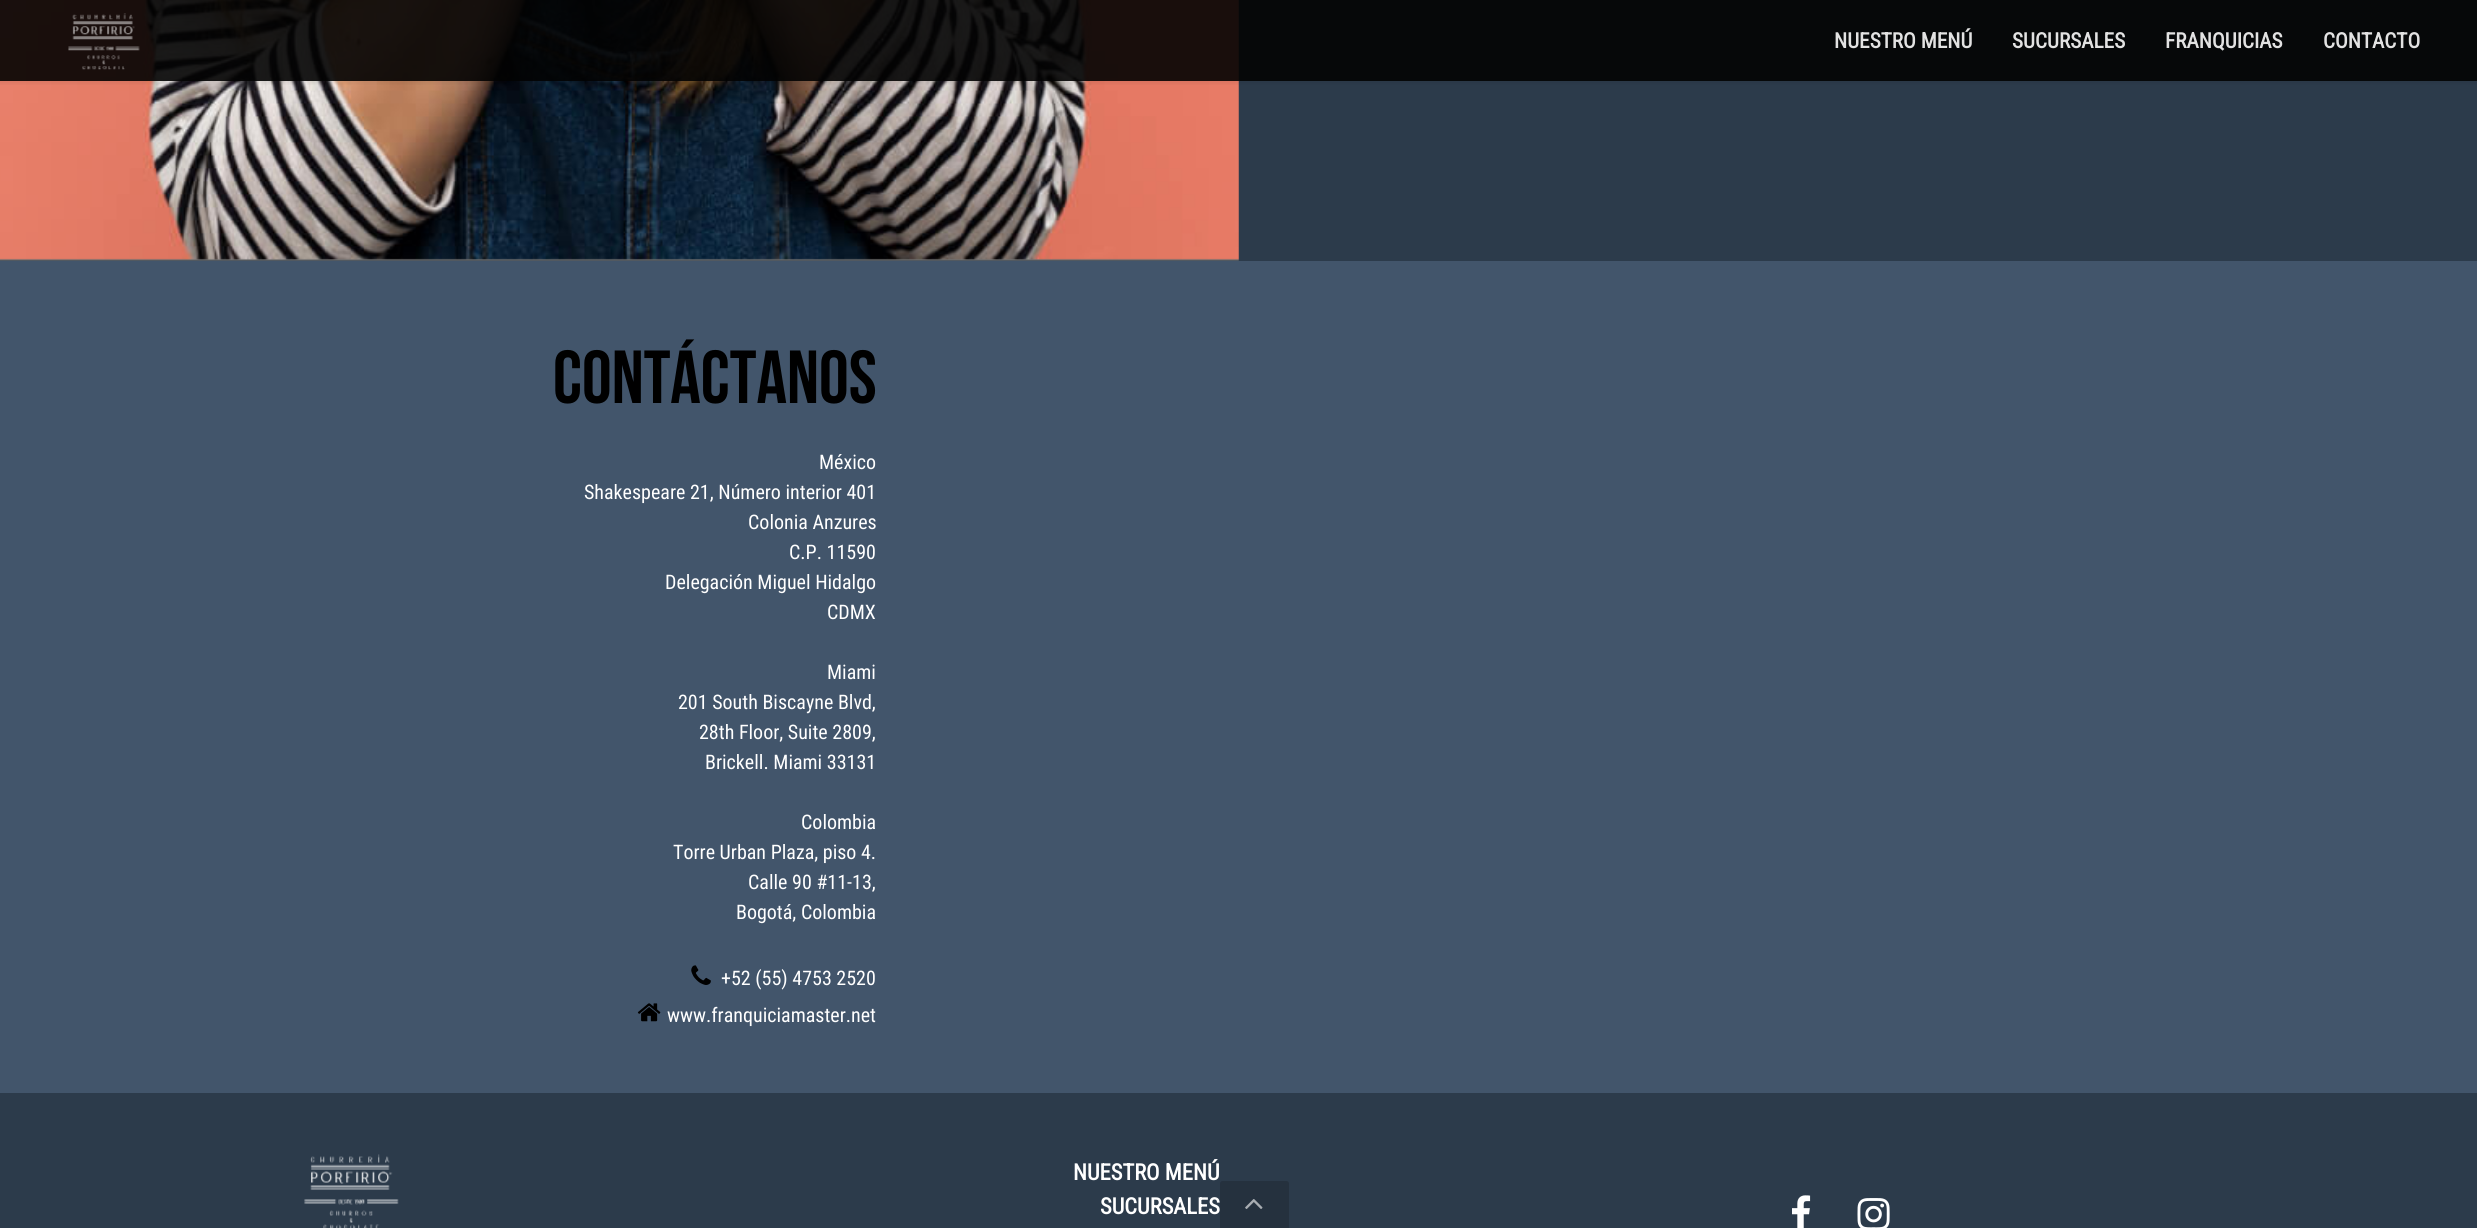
import math
import cairo

surface = cairo.ImageSurface(cairo.FORMAT_RGB24, 2477, 1228)
ctx = cairo.Context(surface)
options = cairo.FontOptions()
options.set_hint_metrics(cairo.HINT_METRICS_OFF)
options.set_hint_style(cairo.HINT_STYLE_NONE)
ctx.set_font_options(options)
ctx.set_miter_limit(4)


def round_rect(x, y, w, h, r):
    ctx.new_sub_path()
    for i, (u, v) in enumerate([(x + w - r, y + h - r), (x + r, y + h - r), (x + r, y + r), (x + w - r, y + r)]):
        ctx.arc(u, v, r, i * math.pi / 2, (i + 1) * math.pi / 2)
    ctx.close_path()


def shadow(x, y, w, h, r, blur, alpha):
    ctx.push_group_with_content(cairo.CONTENT_ALPHA)
    ctx.set_operator(cairo.OPERATOR_SOURCE)
    for i in range(15, -16, -2):
        e = blur * i / 6
        if min(w, h) + 2 * e > 0:
            ctx.set_source_rgba(0, 0, 0, alpha * math.erfc((i - 1) / 8.5) / 2)
            round_rect(x - e, y - e, w + 2 * e, h + 2 * e, max(0, min(r + e + blur * .6, min(w, h) / 2 + e)))
            ctx.fill()
    ctx.mask(ctx.pop_group())


def picture(path, x, y, w, h):
    ctx.save()
    ctx.set_source_surface(cairo.ImageSurface.create_from_png(path), x, y)
    ctx.rectangle(x, y, w, h)
    ctx.fill()
    ctx.restore()


ctx.set_source_rgb(0.173, 0.231, 0.294)
ctx.paint()
picture("img1.png", 0, 0, 1239, 261)
ctx.save()
ctx.rectangle(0, 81, 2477, 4)
ctx.clip()
ctx.set_source_rgb(0, 0, 0)
shadow(-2, -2, 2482, 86, 0, 2, 0.06)
ctx.restore()
ctx.set_source_rgba(0.012, 0.012, 0.012, 0.9)
ctx.rectangle(0, 0, 2477, 81)
ctx.fill()
picture("img2.png", 68, 13, 72, 57)
ctx.select_font_face("Roboto Condensed", cairo.FONT_SLANT_NORMAL, cairo.FONT_WEIGHT_BOLD)
ctx.set_font_size(21.25)
ctx.set_source_rgb(0.886, 0.886, 0.886)
ctx.move_to(1834, 48)
ctx.show_text("NUESTRO MENÚ")
ctx.move_to(2012, 48)
ctx.show_text("SUCURSALES")
ctx.move_to(2165, 48)
ctx.show_text("FRANQUICIAS")
ctx.move_to(2323, 48)
ctx.show_text("CONTACTO")
ctx.set_source_rgb(0.259, 0.333, 0.42)
ctx.rectangle(0, 261, 2477, 832)
ctx.fill()
ctx.select_font_face("Bebas Neue", cairo.FONT_SLANT_NORMAL, cairo.FONT_WEIGHT_BOLD)
ctx.set_font_size(75)
ctx.set_source_rgb(0, 0, 0)
ctx.move_to(553, 403)
ctx.show_text("CONTÁCTANOS")
ctx.select_font_face("Roboto Condensed")
ctx.set_font_size(20)
ctx.set_source_rgb(1, 1, 1)
ctx.move_to(819, 469)
ctx.show_text("México")
ctx.move_to(584, 499)
ctx.show_text("Shakespeare 21, Número interior 401")
ctx.move_to(748, 529)
ctx.show_text("Colonia Anzures")
ctx.move_to(789, 559)
ctx.show_text("C.P. 11590")
ctx.move_to(665, 589)
ctx.show_text("Delegación Miguel Hidalgo")
ctx.move_to(827, 619)
ctx.show_text("CDMX")
ctx.move_to(827, 679)
ctx.show_text("Miami")
ctx.move_to(678, 709)
ctx.show_text("201 South Biscayne Blvd,")
ctx.move_to(699, 739)
ctx.show_text("28th Floor, Suite 2809,")
ctx.move_to(705, 769)
ctx.show_text("Brickell. Miami 33131")
ctx.move_to(801, 829)
ctx.show_text("Colombia")
ctx.move_to(673, 859)
ctx.show_text("Torre Urban Plaza, piso 4.")
ctx.move_to(748, 889)
ctx.show_text("Calle 90 #11-13,")
ctx.move_to(736, 919)
ctx.show_text("Bogotá, Colombia")
picture("img3.png", 691, 965, 20, 20)
ctx.move_to(721, 985)
ctx.show_text("+52 (55) 4753 2520")
picture("img4.png", 637, 1003, 24, 19)
ctx.move_to(667, 1022)
ctx.show_text("www.franquiciamaster.net")
picture("img5.png", 304, 1154, 95, 74)
ctx.select_font_face("Roboto Condensed", cairo.FONT_SLANT_NORMAL, cairo.FONT_WEIGHT_BOLD)
ctx.set_font_size(22.5)
ctx.move_to(1073, 1180)
ctx.show_text("NUESTRO MENÚ")
ctx.move_to(1100, 1214)
ctx.show_text("SUCURSALES")
picture("img6.png", 1792, 1195, 19, 33)
picture("img7.png", 1857, 1198, 33, 30)
ctx.set_source_rgb(0.145, 0.192, 0.243)
round_rect(1220, 1181, 69, 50, 2.5)
ctx.fill()
picture("img8.png", 1245, 1199, 18, 10)
surface.write_to_png("page.png")
